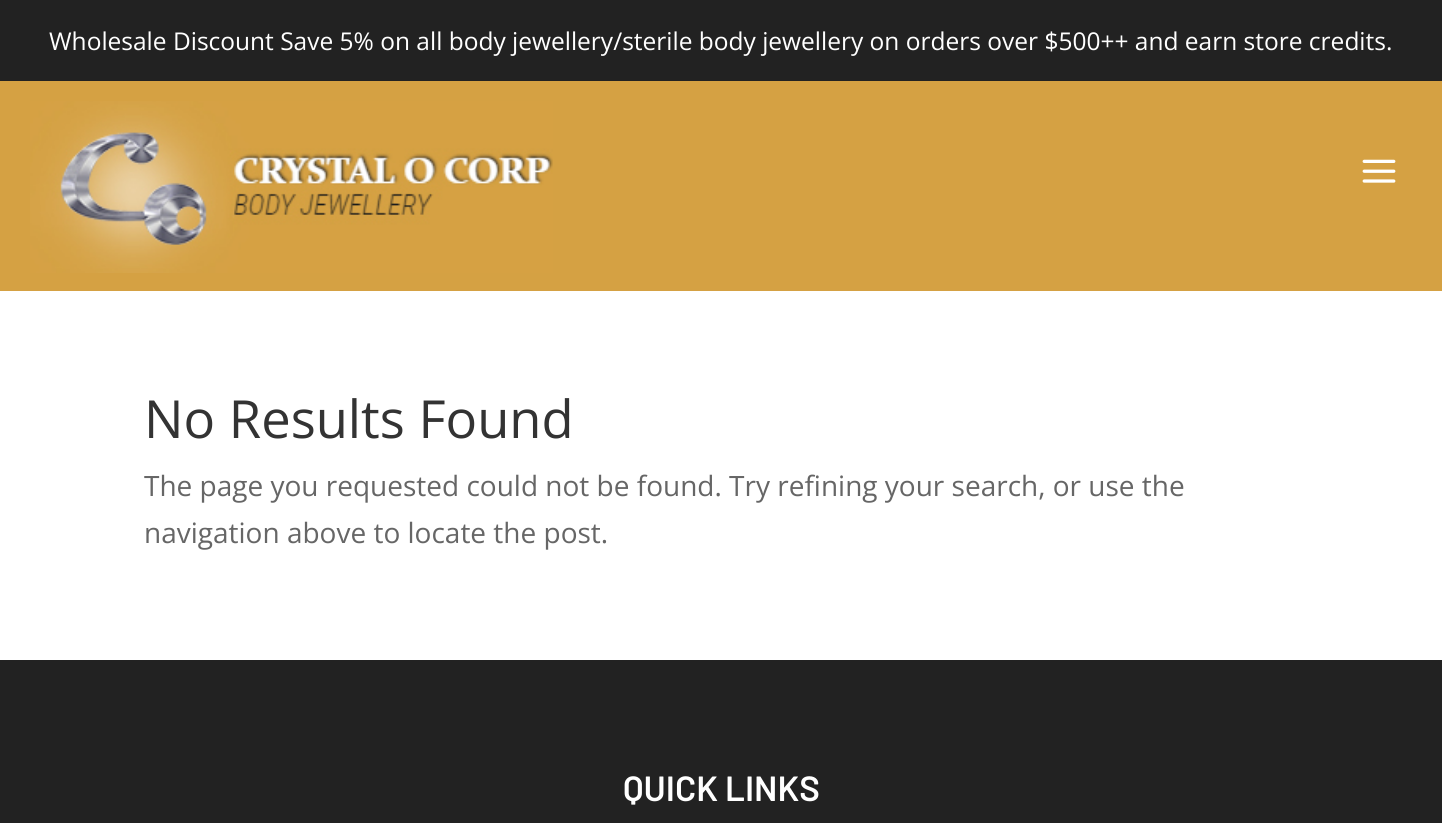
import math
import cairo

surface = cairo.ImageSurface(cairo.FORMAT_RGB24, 1442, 823)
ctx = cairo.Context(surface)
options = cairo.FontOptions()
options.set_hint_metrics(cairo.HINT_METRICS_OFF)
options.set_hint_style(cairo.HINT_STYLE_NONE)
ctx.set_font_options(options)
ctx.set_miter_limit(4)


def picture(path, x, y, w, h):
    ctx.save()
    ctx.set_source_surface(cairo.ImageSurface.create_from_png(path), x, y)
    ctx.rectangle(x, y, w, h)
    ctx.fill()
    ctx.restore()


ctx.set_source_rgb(1, 1, 1)
ctx.paint()
ctx.set_source_rgb(0.133, 0.133, 0.133)
ctx.rectangle(0, 0, 1442, 81)
ctx.fill()
ctx.select_font_face("Open Sans")
ctx.set_font_size(24.5)
ctx.set_source_rgb(1, 1, 1)
ctx.move_to(49, 50)
ctx.show_text("Wholesale Discount Save 5% on all body jewellery/sterile body jewellery on orders over $500++ and earn store credits.")
ctx.set_source_rgb(0.835, 0.631, 0.263)
ctx.rectangle(0, 81, 1442, 210)
ctx.fill()
picture("img1.png", 30, 101, 523, 172)
picture("img2.png", 1362, 159, 34, 24)
ctx.set_font_size(52.5)
ctx.set_source_rgb(0.2, 0.2, 0.2)
ctx.move_to(144, 438)
ctx.show_text("No Results Found")
ctx.set_font_size(28)
ctx.set_source_rgb(0.4, 0.4, 0.4)
ctx.move_to(144, 496)
ctx.show_text("The page you requested could not be found. Try refining your search, or use the")
ctx.move_to(144, 543)
ctx.show_text("navigation above to locate the post.")
ctx.set_source_rgb(0.133, 0.133, 0.133)
ctx.rectangle(0, 660, 1442, 163)
ctx.fill()
ctx.select_font_face("Barlow SemiBold")
ctx.set_font_size(35)
ctx.set_source_rgb(1, 1, 1)
ctx.move_to(623, 801)
ctx.show_text("QUICK LINKS")
surface.write_to_png("page.png")
